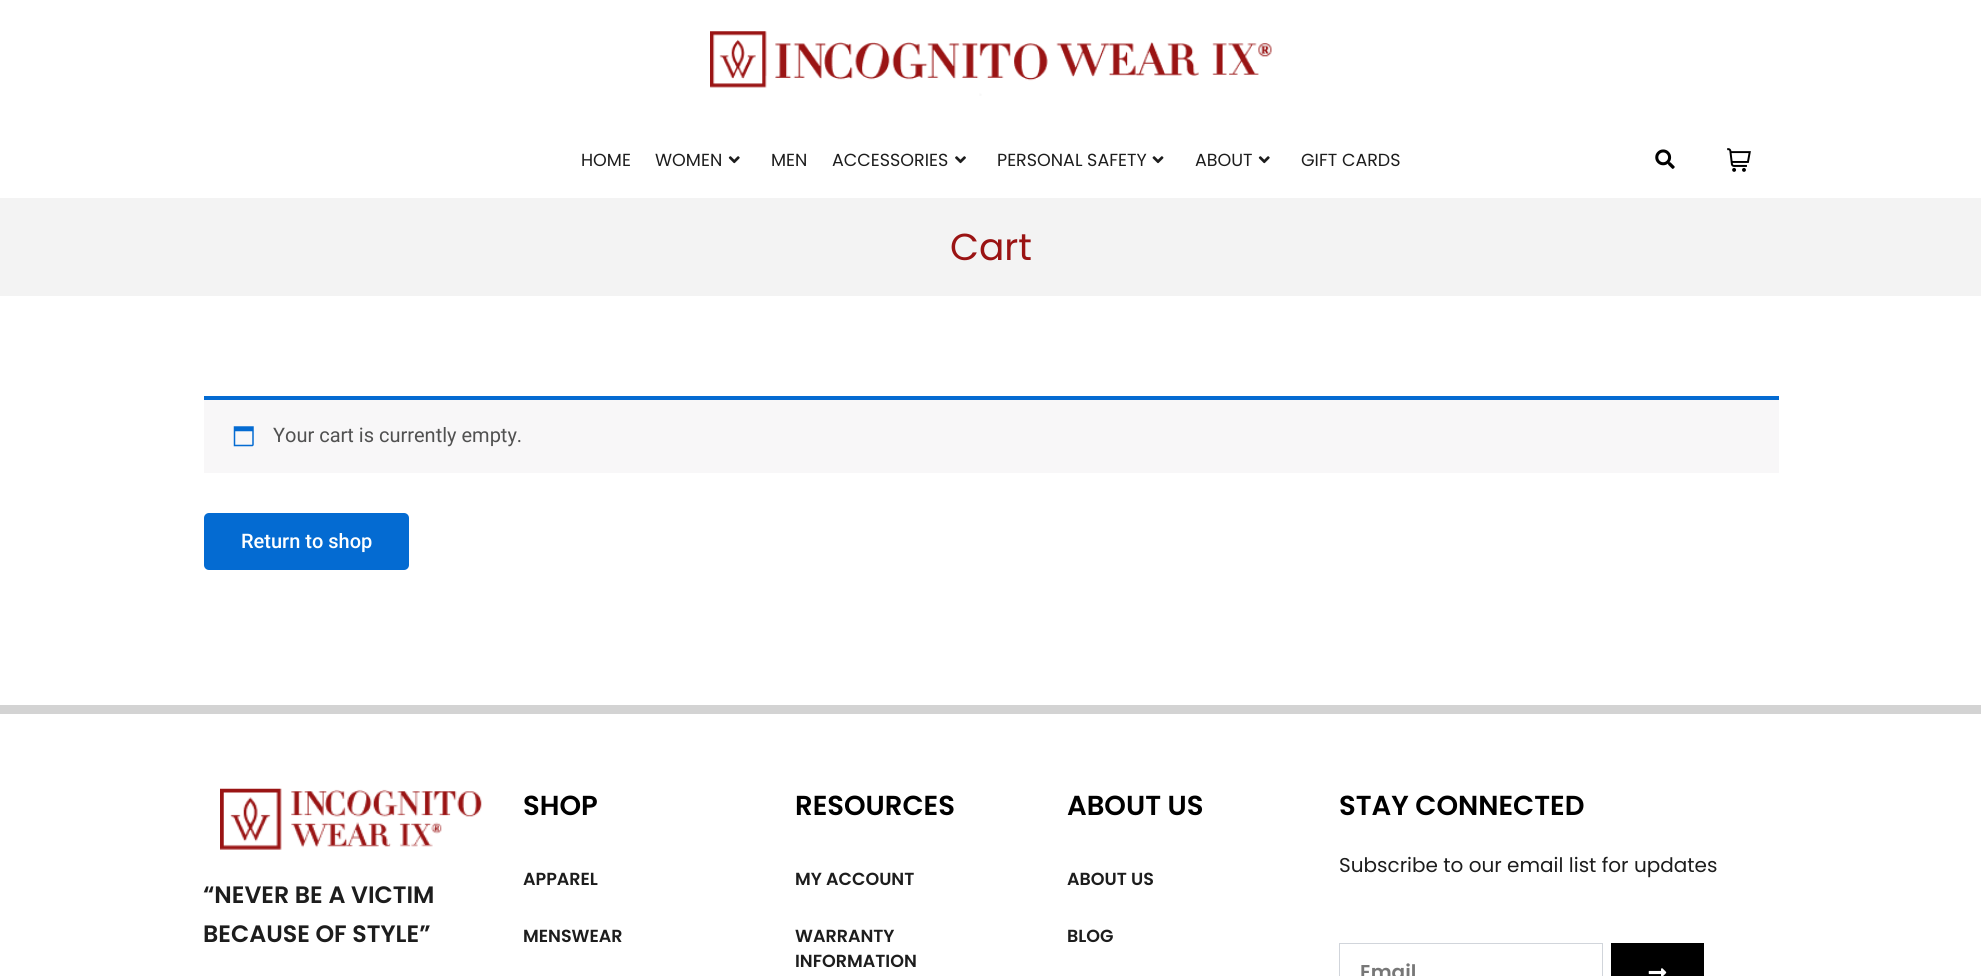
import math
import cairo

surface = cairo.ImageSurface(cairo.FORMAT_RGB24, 1981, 976)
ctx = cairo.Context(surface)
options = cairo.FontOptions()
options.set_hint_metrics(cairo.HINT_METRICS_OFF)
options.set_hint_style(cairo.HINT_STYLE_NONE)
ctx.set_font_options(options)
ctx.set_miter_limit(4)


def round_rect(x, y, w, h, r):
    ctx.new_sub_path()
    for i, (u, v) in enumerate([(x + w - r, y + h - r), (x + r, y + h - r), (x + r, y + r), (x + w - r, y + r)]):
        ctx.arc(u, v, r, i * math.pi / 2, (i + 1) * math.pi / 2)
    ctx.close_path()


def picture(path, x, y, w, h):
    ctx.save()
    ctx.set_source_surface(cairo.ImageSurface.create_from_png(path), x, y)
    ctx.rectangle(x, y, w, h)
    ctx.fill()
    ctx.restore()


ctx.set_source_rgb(1, 1, 1)
ctx.paint()
picture("img1.png", 710, 31, 562, 65)
ctx.select_font_face("Poppins")
ctx.set_font_size(17.5)
ctx.set_source_rgb(0.114, 0.114, 0.114)
ctx.move_to(581, 166)
ctx.show_text("HOME")
ctx.move_to(655, 166)
ctx.show_text("WOMEN")
picture("img2.png", 728, 156, 12, 8)
ctx.move_to(771, 166)
ctx.show_text("MEN")
ctx.move_to(832, 166)
ctx.show_text("ACCESSORIES")
picture("img3.png", 955, 156, 11, 8)
ctx.move_to(997, 166)
ctx.show_text("PERSONAL SAFETY")
picture("img4.png", 1152, 156, 12, 8)
ctx.move_to(1195, 166)
ctx.show_text("ABOUT")
picture("img2.png", 1258, 156, 12, 8)
ctx.move_to(1301, 166)
ctx.show_text("GIFT CARDS")
picture("img5.png", 1655, 149, 20, 20)
picture("img6.png", 1727, 148, 24, 24)
ctx.set_source_rgb(0.953, 0.953, 0.953)
ctx.rectangle(0, 198, 1981, 98)
ctx.fill()
ctx.set_font_size(37.5)
ctx.set_source_rgb(0.604, 0.078, 0.078)
ctx.move_to(950, 260)
ctx.show_text("Cart")
ctx.set_source_rgb(0.969, 0.965, 0.969)
ctx.rectangle(204, 400, 1575, 73)
ctx.fill()
ctx.set_source_rgb(0.016, 0.42, 0.824)
ctx.rectangle(204, 396, 1575, 4)
ctx.fill()
picture("img7.png", 233, 426, 21, 21)
ctx.select_font_face("Roboto")
ctx.set_font_size(20)
ctx.set_source_rgb(0.318, 0.318, 0.318)
ctx.move_to(273, 442)
ctx.show_text("Your cart is currently empty.")
ctx.set_source_rgb(0.016, 0.42, 0.824)
round_rect(204, 513, 205, 57, 5)
ctx.fill()
ctx.select_font_face("Roboto Medium")
ctx.set_source_rgb(1, 1, 1)
ctx.move_to(241, 548)
ctx.show_text("Return to shop")
ctx.set_source_rgb(0.827, 0.827, 0.827)
ctx.rectangle(0, 705, 1981, 9)
ctx.fill()
picture("img8.png", 220, 788, 262, 62)
ctx.select_font_face("Poppins SemiBold")
ctx.set_font_size(23.75)
ctx.set_source_rgb(0.114, 0.114, 0.114)
ctx.move_to(203, 903)
ctx.show_text("“NEVER BE A VICTIM")
ctx.move_to(203, 942)
ctx.show_text("BECAUSE OF STYLE”")
ctx.set_font_size(27.5)
ctx.set_source_rgb(0, 0, 0)
ctx.move_to(523, 815)
ctx.show_text("SHOP")
ctx.set_font_size(17.5)
ctx.set_source_rgb(0.114, 0.114, 0.114)
ctx.move_to(523, 885)
ctx.show_text("APPAREL")
ctx.move_to(523, 942)
ctx.show_text("MENSWEAR")
ctx.set_font_size(27.5)
ctx.set_source_rgb(0, 0, 0)
ctx.move_to(795, 815)
ctx.show_text("RESOURCES")
ctx.set_font_size(17.5)
ctx.set_source_rgb(0.114, 0.114, 0.114)
ctx.move_to(795, 885)
ctx.show_text("MY ACCOUNT")
ctx.move_to(795, 942)
ctx.show_text("WARRANTY")
ctx.move_to(795, 967)
ctx.show_text("INFORMATION")
ctx.set_font_size(27.5)
ctx.set_source_rgb(0, 0, 0)
ctx.move_to(1067, 815)
ctx.show_text("ABOUT US")
ctx.set_font_size(17.5)
ctx.set_source_rgb(0.114, 0.114, 0.114)
ctx.move_to(1067, 885)
ctx.show_text("ABOUT US")
ctx.move_to(1067, 942)
ctx.show_text("BLOG")
ctx.set_font_size(27.5)
ctx.set_source_rgb(0, 0, 0)
ctx.move_to(1339, 815)
ctx.show_text("STAY CONNECTED")
ctx.select_font_face("Poppins")
ctx.set_font_size(20)
ctx.set_source_rgb(0.114, 0.114, 0.114)
ctx.move_to(1339, 872)
ctx.show_text("Subscribe to our email list for updates")
ctx.rectangle(1339.5, 943.5, 263, 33)
ctx.set_source_rgb(0.82, 0.835, 0.859)
ctx.set_line_width(1)
ctx.stroke()
ctx.select_font_face("Poppins SemiBold")
ctx.set_source_rgb(0.467, 0.467, 0.467)
ctx.move_to(1360, 979)
ctx.show_text("Email")
ctx.set_source_rgb(0, 0, 0)
ctx.rectangle(1611, 943, 93, 33)
ctx.fill()
picture("img9.png", 1648, 968, 19, 8)
surface.write_to_png("page.png")
